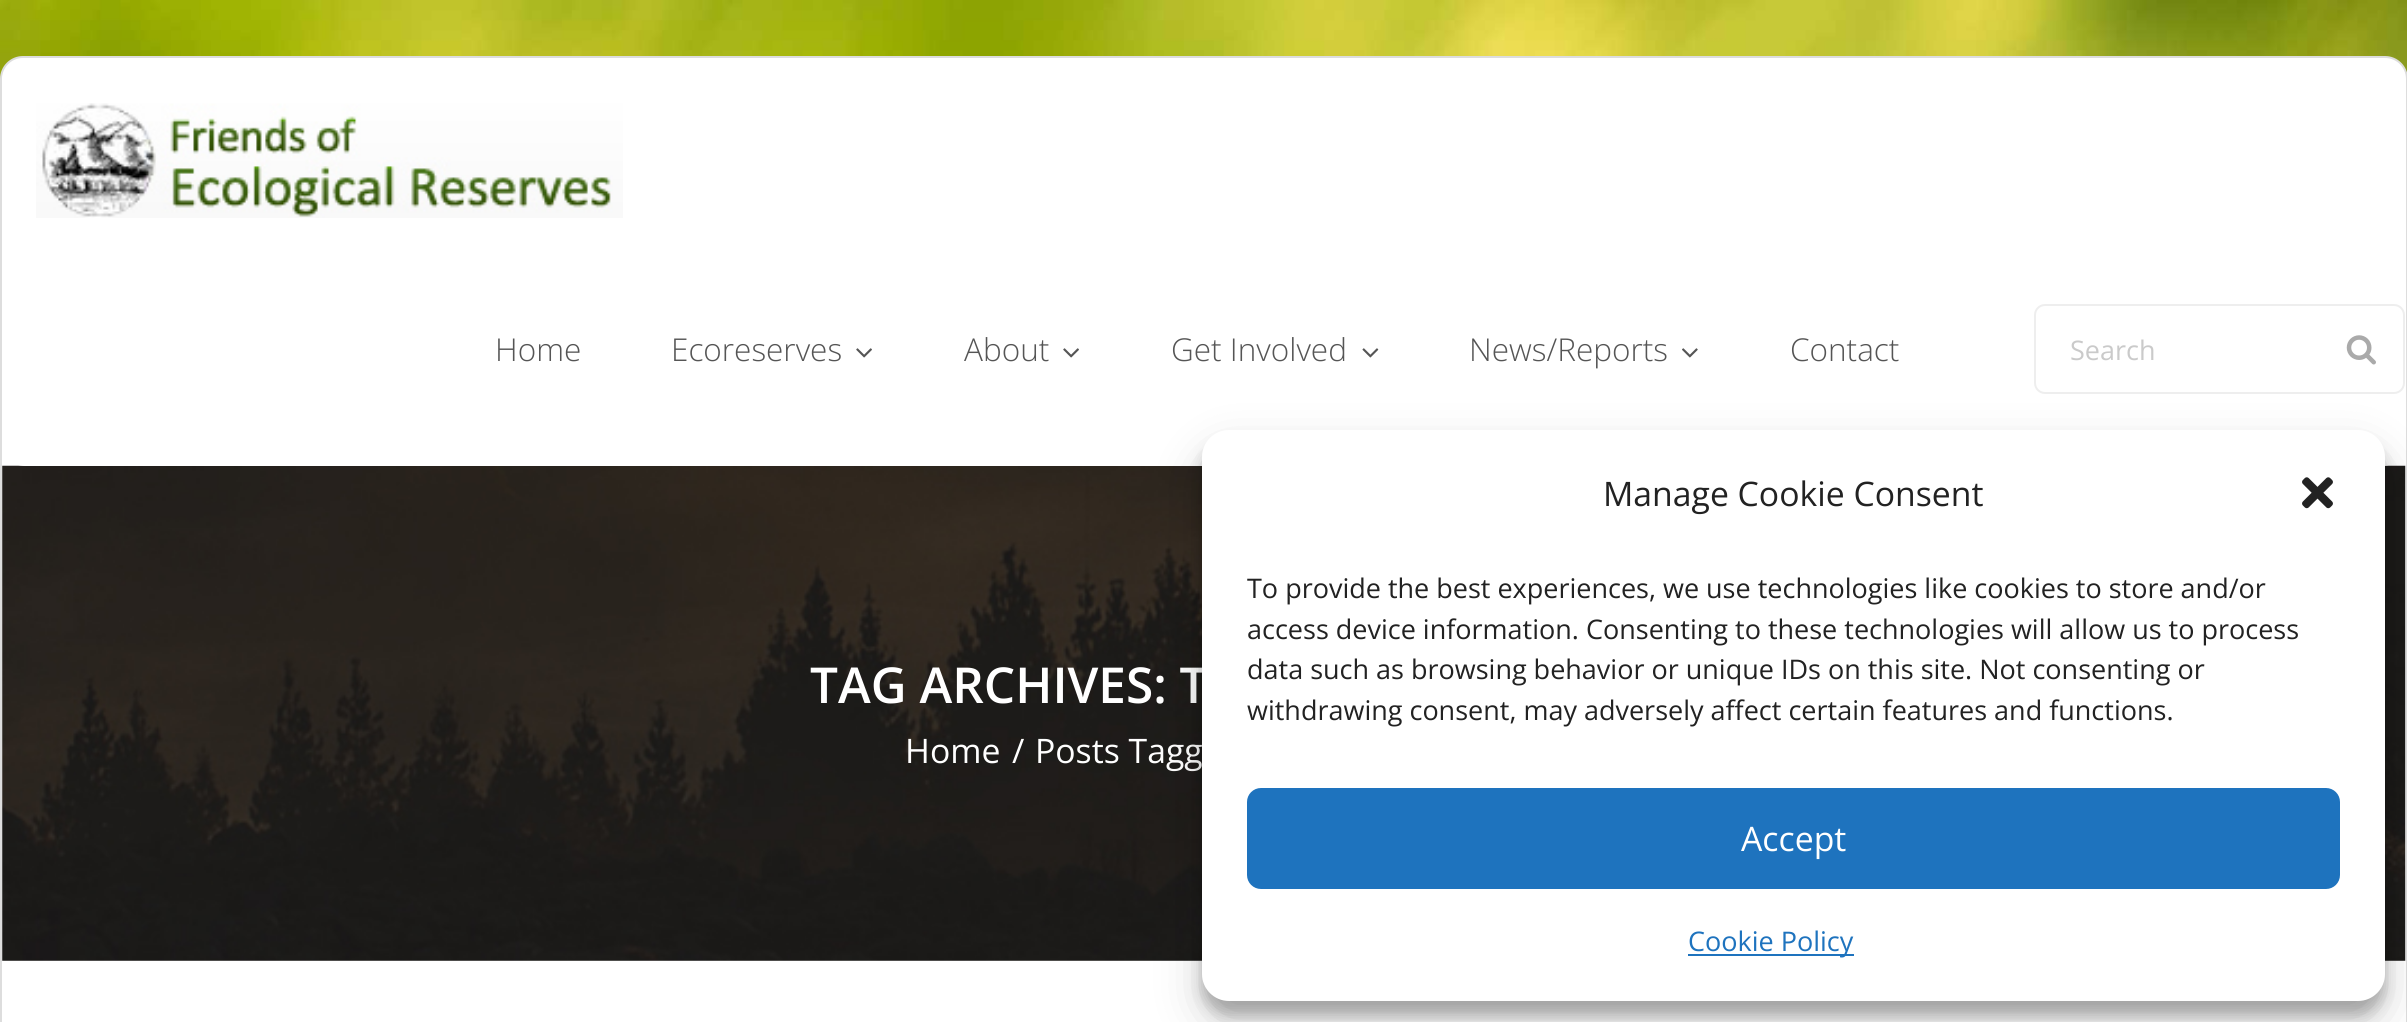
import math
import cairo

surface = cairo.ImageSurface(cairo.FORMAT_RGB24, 2407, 1022)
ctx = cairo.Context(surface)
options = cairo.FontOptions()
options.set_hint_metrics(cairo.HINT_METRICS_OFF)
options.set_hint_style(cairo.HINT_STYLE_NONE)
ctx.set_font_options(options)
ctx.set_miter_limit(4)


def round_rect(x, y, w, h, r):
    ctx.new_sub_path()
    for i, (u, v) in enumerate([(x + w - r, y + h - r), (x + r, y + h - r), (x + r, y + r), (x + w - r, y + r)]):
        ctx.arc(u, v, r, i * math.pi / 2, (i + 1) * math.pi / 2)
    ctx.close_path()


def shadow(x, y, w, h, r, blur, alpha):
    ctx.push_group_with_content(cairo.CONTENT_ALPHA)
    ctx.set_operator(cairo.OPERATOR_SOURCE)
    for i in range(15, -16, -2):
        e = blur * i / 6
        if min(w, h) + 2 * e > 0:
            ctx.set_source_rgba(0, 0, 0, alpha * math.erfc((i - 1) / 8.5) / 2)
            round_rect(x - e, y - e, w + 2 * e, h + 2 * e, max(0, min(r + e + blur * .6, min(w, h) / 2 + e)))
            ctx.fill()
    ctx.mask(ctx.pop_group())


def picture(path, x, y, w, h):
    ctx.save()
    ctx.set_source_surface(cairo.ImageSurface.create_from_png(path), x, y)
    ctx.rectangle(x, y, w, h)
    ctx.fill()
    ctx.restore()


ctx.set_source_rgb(1, 1, 1)
ctx.paint()
picture("img1.png", 0, 0, 2407, 79)
ctx.set_source_rgb(1, 1, 1)
round_rect(1, 57, 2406, 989, 22)
ctx.fill_preserve()
ctx.set_source_rgb(0.867, 0.867, 0.867)
ctx.stroke()
ctx.set_source_rgb(0.937, 0.933, 0.933)
ctx.rectangle(2, 466, 2403, 495)
ctx.fill()
picture("img7.png", 2, 465, 2404, 496)
ctx.set_source_rgb(1, 1, 1)
round_rect(2, 59, 2403, 407, 23)
ctx.fill()
picture("img2.png", 36, 103, 587, 115)
ctx.select_font_face("Open Sans Light")
ctx.set_font_size(31.5)
ctx.set_source_rgb(0.333, 0.333, 0.333)
ctx.move_to(495, 361)
ctx.show_text("Home")
ctx.move_to(671, 361)
ctx.show_text("Ecoreserves")
picture("img3.png", 856, 348, 16, 10)
ctx.move_to(964, 361)
ctx.show_text("About")
picture("img3.png", 1063, 348, 16, 10)
ctx.move_to(1171, 361)
ctx.show_text("Get Involved")
picture("img4.png", 1362, 348, 17, 10)
ctx.move_to(1469, 361)
ctx.show_text("News/Reports")
picture("img5.png", 1682, 348, 16, 10)
ctx.move_to(1790, 361)
ctx.show_text("Contact")
round_rect(2035, 305, 369, 88, 10)
ctx.set_source_rgb(0.933, 0.933, 0.933)
ctx.stroke()
ctx.select_font_face("Open Sans")
ctx.set_font_size(27)
ctx.set_source_rgb(0.792, 0.792, 0.792)
ctx.move_to(2070, 360)
ctx.show_text("Search")
picture("img6.png", 2346, 335, 30, 30)
ctx.select_font_face("Open Sans SemiBold")
ctx.set_font_size(49.5)
ctx.set_source_rgb(1, 1, 1)
ctx.move_to(810, 703)
ctx.show_text("TAG ARCHIVES: T")
ctx.select_font_face("Open Sans")
ctx.set_font_size(33.75)
ctx.move_to(905, 763)
ctx.show_text("Home")
ctx.move_to(1012, 763)
ctx.show_text("/")
ctx.move_to(1035, 763)
ctx.show_text("Posts Tagg")
ctx.set_source_rgb(0, 0, 0)
shadow(1202, 443, 1183, 572, 27, 7, 0.23)
shadow(1202, 452, 1183, 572, 27, 22.5, 0.19)
ctx.set_source_rgb(1, 1, 1)
round_rect(1202, 430, 1183, 571, 27)
ctx.fill()
ctx.set_source_rgb(0.133, 0.133, 0.133)
ctx.move_to(1603, 506)
ctx.show_text("Manage Cookie Consent")
picture("img8.png", 2302, 477, 31, 32)
ctx.save()
ctx.rectangle(1247, 569, 1093, 174)
ctx.clip()
ctx.set_font_size(27)
ctx.move_to(1247, 598)
ctx.show_text("To provide the best experiences, we use technologies like cookies to store and/or")
ctx.restore()
ctx.set_font_size(27)
ctx.move_to(1247, 639)
ctx.show_text("access device information. Consenting to these technologies will allow us to process")
ctx.move_to(1247, 679)
ctx.show_text("data such as browsing behavior or unique IDs on this site. Not consenting or")
ctx.move_to(1247, 720)
ctx.show_text("withdrawing consent, may adversely affect certain features and functions.")
ctx.set_source_rgb(0.118, 0.451, 0.745)
round_rect(1248, 789, 1091, 99, 13)
ctx.fill_preserve()
ctx.stroke()
ctx.set_font_size(33.75)
ctx.set_source_rgb(1, 1, 1)
ctx.move_to(1741, 851)
ctx.show_text("Accept")
ctx.set_source_rgb(0.118, 0.451, 0.745)
ctx.rectangle(1688, 954, 166, 2)
ctx.fill()
ctx.set_font_size(27)
ctx.move_to(1688, 951)
ctx.show_text("Cookie Policy")
surface.write_to_png("page.png")
